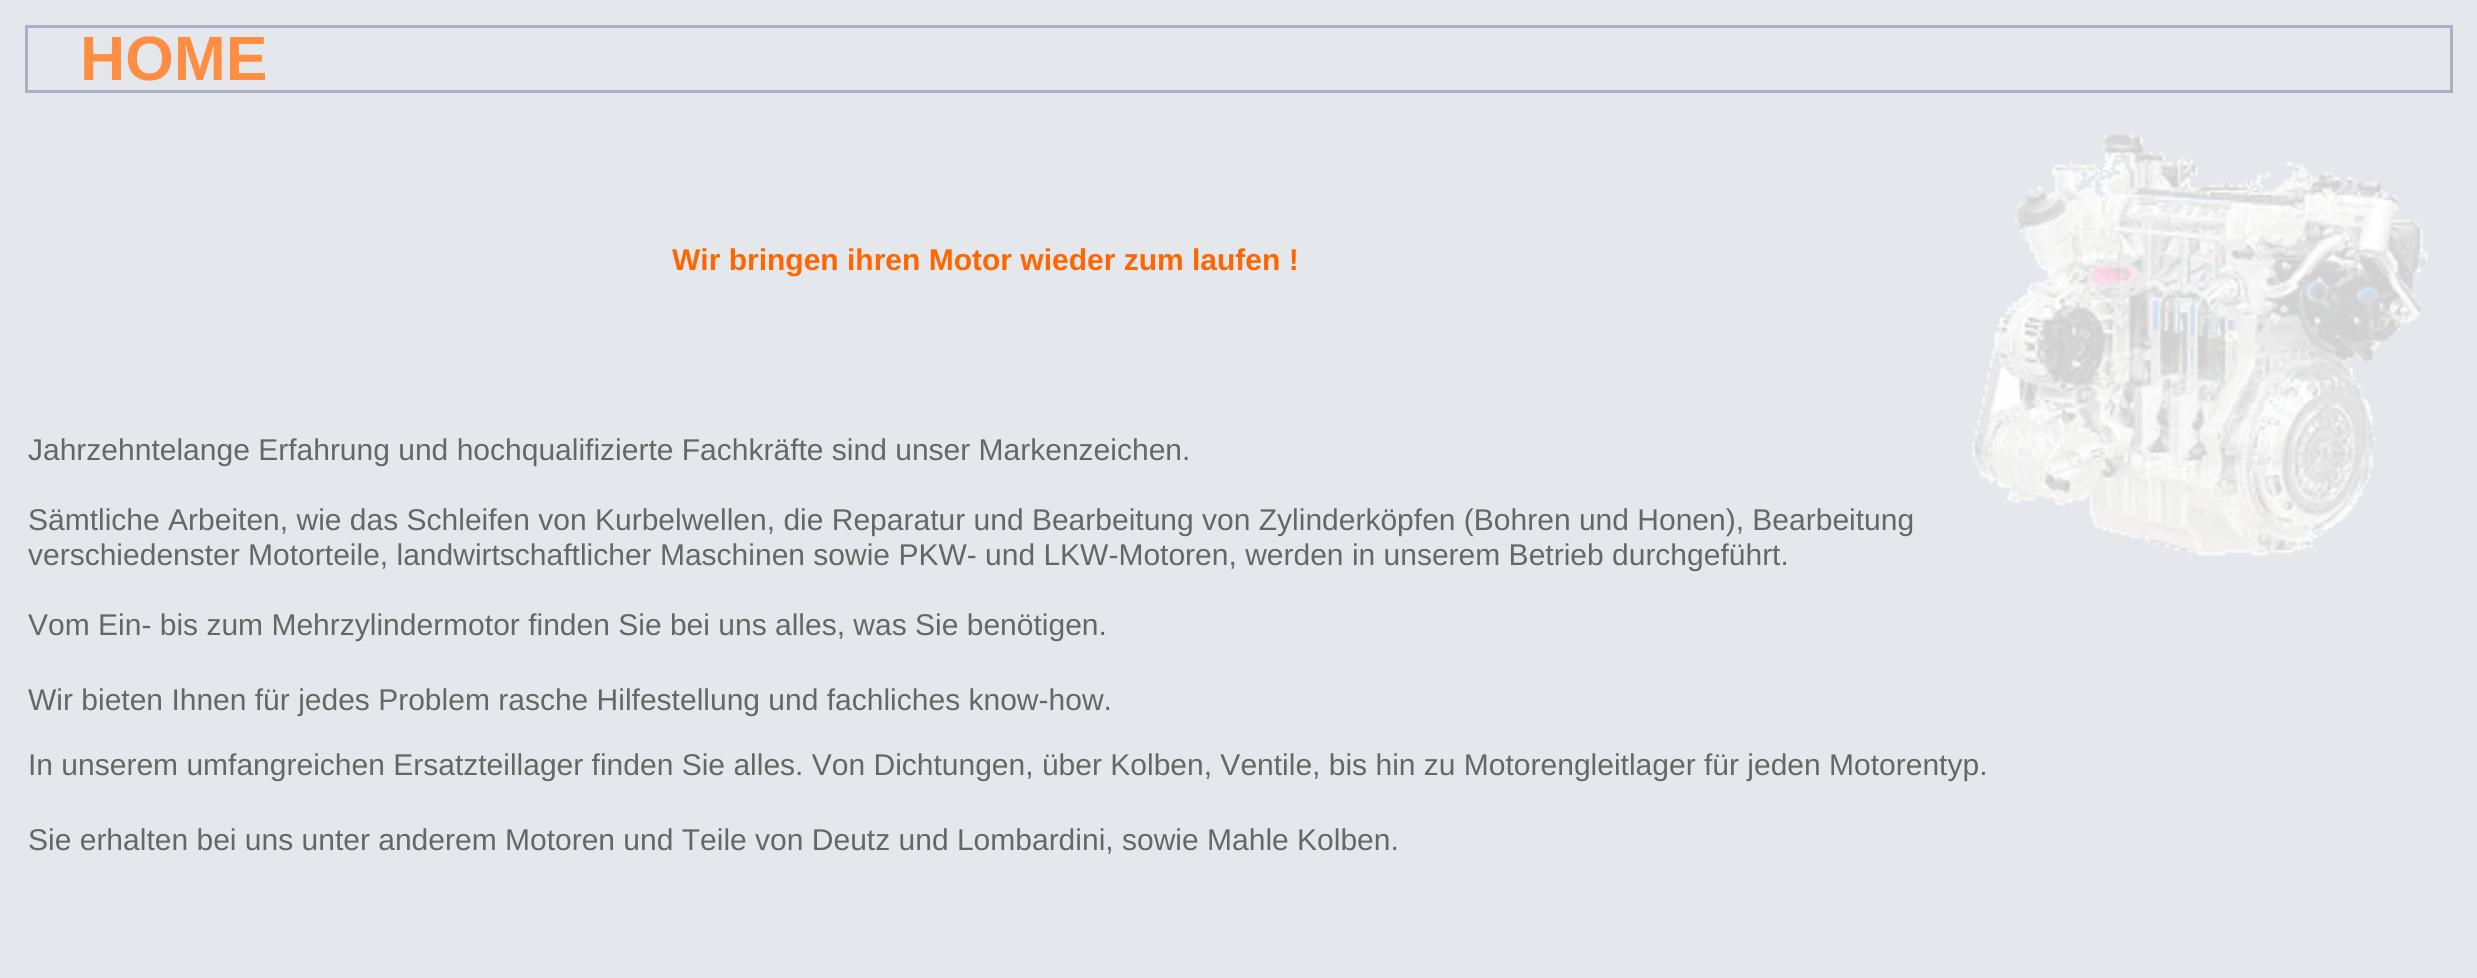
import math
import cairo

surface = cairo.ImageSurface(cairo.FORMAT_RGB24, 2477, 978)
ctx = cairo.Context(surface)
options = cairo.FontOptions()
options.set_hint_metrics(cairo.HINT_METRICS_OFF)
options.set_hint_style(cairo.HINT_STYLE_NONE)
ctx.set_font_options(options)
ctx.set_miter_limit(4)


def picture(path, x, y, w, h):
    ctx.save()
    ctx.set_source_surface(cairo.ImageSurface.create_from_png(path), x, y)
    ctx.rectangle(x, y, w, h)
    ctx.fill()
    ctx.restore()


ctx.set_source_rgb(0.894, 0.91, 0.929)
ctx.paint()
ctx.rectangle(26.5, 26.5, 2425, 65)
ctx.set_source_rgb(0.667, 0.694, 0.769)
ctx.set_line_width(3)
ctx.stroke()
ctx.select_font_face("Liberation Sans", cairo.FONT_SLANT_NORMAL, cairo.FONT_WEIGHT_BOLD)
ctx.set_font_size(62.5)
ctx.set_source_rgb(1, 0.553, 0.259)
ctx.move_to(80, 80)
ctx.show_text("HOME")
ctx.set_font_size(30)
ctx.set_source_rgb(1, 0.4, 0)
ctx.move_to(672, 270)
ctx.show_text("Wir bringen ihren Motor wieder zum laufen !")
picture("img1.png", 1972, 134, 456, 422)
ctx.select_font_face("Liberation Sans")
ctx.set_source_rgb(0.4, 0.4, 0.4)
ctx.move_to(28, 460)
ctx.show_text("Jahrzehntelange Erfahrung und hochqualifizierte Fachkräfte sind unser Markenzeichen.")
ctx.move_to(28, 530)
ctx.show_text("Sämtliche Arbeiten, wie das Schleifen von Kurbelwellen, die Reparatur und Bearbeitung von Zylinderköpfen (Bohren und Honen), Bearbeitung")
ctx.move_to(28, 565)
ctx.show_text("verschiedenster Motorteile, landwirtschaftlicher Maschinen sowie PKW- und LKW-Motoren, werden in unserem Betrieb durchgeführt.")
ctx.move_to(28, 635)
ctx.show_text("Vom Ein- bis zum Mehrzylindermotor finden Sie bei uns alles, was Sie benötigen.")
ctx.move_to(28, 710)
ctx.show_text("Wir bieten Ihnen für jedes Problem rasche Hilfestellung und fachliches know-how.")
ctx.move_to(28, 775)
ctx.show_text("In unserem umfangreichen Ersatzteillager finden Sie alles. Von Dichtungen, über Kolben, Ventile, bis hin zu Motorengleitlager für jeden Motorentyp.")
ctx.move_to(28, 850)
ctx.show_text("Sie erhalten bei uns unter anderem Motoren und Teile von Deutz und Lombardini, sowie Mahle Kolben.")
surface.write_to_png("page.png")
